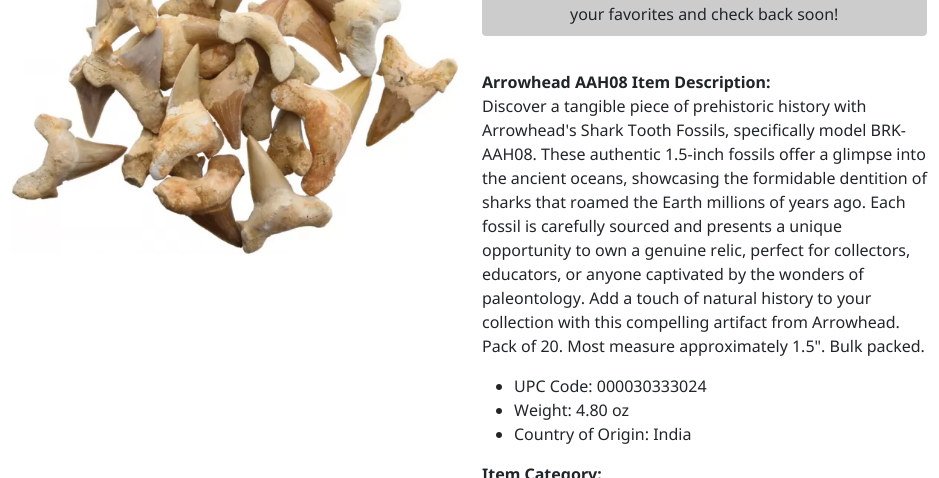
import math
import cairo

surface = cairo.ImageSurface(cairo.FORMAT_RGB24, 939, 478)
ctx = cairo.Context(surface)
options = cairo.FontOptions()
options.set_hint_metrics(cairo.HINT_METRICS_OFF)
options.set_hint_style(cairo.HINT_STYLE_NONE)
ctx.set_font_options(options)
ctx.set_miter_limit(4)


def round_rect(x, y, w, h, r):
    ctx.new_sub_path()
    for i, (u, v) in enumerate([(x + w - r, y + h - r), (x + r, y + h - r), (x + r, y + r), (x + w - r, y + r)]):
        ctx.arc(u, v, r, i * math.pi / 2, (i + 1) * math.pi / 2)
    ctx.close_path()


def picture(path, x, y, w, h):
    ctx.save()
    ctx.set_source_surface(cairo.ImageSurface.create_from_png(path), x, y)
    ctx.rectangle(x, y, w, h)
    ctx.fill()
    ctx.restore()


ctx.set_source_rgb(1, 1, 1)
ctx.paint()
picture("img1.png", 12, 0, 446, 254)
ctx.set_source_rgb(0.8, 0.8, 0.8)
round_rect(482, -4, 445, 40, 4)
ctx.fill()
ctx.select_font_face("Noto Sans")
ctx.set_font_size(16)
ctx.set_source_rgb(0.129, 0.145, 0.161)
ctx.move_to(570, 20)
ctx.show_text("your favorites and check back soon!")
ctx.select_font_face("Noto Sans", cairo.FONT_SLANT_NORMAL, cairo.FONT_WEIGHT_BOLD)
ctx.move_to(482, 88)
ctx.show_text("Arrowhead AAH08 Item Description:")
ctx.select_font_face("Noto Sans")
ctx.move_to(482, 112)
ctx.show_text("Discover a tangible piece of prehistoric history with")
ctx.move_to(482, 136)
ctx.show_text("Arrowhead's Shark Tooth Fossils, specifically model BRK-")
ctx.move_to(482, 160)
ctx.show_text("AAH08. These authentic 1.5-inch fossils offer a glimpse into")
ctx.move_to(482, 184)
ctx.show_text("the ancient oceans, showcasing the formidable dentition of")
ctx.move_to(482, 208)
ctx.show_text("sharks that roamed the Earth millions of years ago. Each")
ctx.move_to(482, 232)
ctx.show_text("fossil is carefully sourced and presents a unique")
ctx.move_to(482, 256)
ctx.show_text("opportunity to own a genuine relic, perfect for collectors,")
ctx.move_to(482, 280)
ctx.show_text("educators, or anyone captivated by the wonders of")
ctx.move_to(482, 304)
ctx.show_text("paleontology. Add a touch of natural history to your")
ctx.move_to(482, 328)
ctx.show_text("collection with this compelling artifact from Arrowhead.")
ctx.move_to(482, 352)
ctx.show_text("Pack of 20. Most measure approximately 1.5\". Bulk packed.")
ctx.new_path()
ctx.arc(499, 387, 3, 0, 2 * math.pi)
ctx.fill()
ctx.move_to(514, 392)
ctx.show_text("UPC Code: 000030333024")
ctx.new_path()
ctx.arc(499, 411, 3, 0, 2 * math.pi)
ctx.fill()
ctx.move_to(514, 416)
ctx.show_text("Weight: 4.80 oz")
ctx.new_path()
ctx.arc(499, 435, 3, 0, 2 * math.pi)
ctx.fill()
ctx.move_to(514, 440)
ctx.show_text("Country of Origin: India")
ctx.select_font_face("Noto Sans", cairo.FONT_SLANT_NORMAL, cairo.FONT_WEIGHT_BOLD)
ctx.move_to(482, 480)
ctx.show_text("Item Category:")
surface.write_to_png("page.png")
